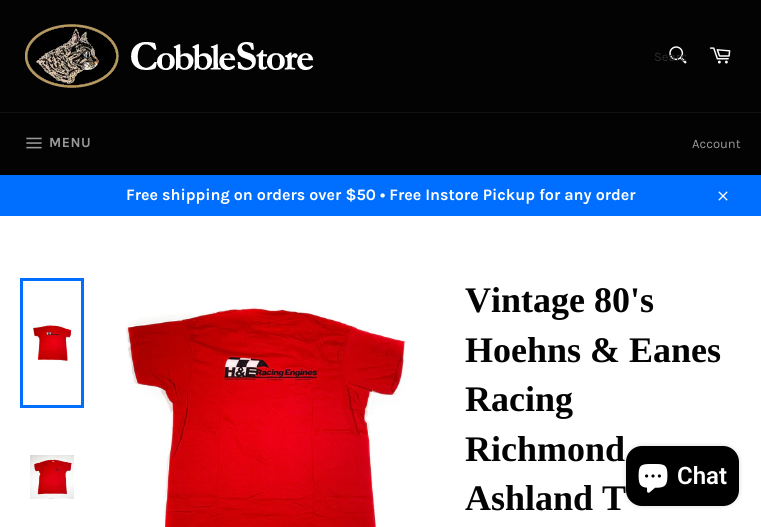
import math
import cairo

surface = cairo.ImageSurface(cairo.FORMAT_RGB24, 761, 527)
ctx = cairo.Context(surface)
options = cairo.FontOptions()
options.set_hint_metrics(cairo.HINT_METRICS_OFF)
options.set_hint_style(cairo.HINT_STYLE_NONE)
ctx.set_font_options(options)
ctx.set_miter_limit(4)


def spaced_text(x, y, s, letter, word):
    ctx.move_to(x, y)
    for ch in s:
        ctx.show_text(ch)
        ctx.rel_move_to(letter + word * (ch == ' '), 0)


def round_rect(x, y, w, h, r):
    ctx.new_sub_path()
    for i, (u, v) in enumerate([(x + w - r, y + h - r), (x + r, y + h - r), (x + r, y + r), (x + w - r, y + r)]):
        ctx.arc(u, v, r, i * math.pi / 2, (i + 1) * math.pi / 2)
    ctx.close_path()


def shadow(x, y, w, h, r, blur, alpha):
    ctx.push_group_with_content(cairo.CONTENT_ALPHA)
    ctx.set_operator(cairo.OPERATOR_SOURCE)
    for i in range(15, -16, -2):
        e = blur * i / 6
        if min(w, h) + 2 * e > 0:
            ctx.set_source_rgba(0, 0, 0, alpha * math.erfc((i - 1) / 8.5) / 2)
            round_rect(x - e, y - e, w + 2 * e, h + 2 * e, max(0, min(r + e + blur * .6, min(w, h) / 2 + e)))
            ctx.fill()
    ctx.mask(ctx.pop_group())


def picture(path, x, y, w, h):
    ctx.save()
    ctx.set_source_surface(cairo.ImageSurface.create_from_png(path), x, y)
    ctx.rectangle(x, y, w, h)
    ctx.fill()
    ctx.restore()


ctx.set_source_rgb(0.012, 0.012, 0.012)
ctx.paint()
picture("img1.png", 25, 24, 288, 64)
picture("img2.png", 669, 46, 18, 18)
ctx.select_font_face("Karla")
ctx.set_font_size(13)
ctx.set_source_rgb(0.169, 0.169, 0.169)
ctx.move_to(654, 61)
ctx.show_text("Searc")
picture("img3.png", 709, 47, 22, 17)
ctx.set_source_rgb(0.063, 0.063, 0.063)
ctx.rectangle(0, 112, 761, 1)
ctx.fill()
picture("img4.png", 26, 137, 16, 12)
ctx.select_font_face("Karla", cairo.FONT_SLANT_NORMAL, cairo.FONT_WEIGHT_BOLD)
ctx.set_font_size(14)
ctx.set_source_rgb(0.604, 0.604, 0.604)
spaced_text(49, 147, "MENU", 0.5, 0)
ctx.select_font_face("Karla")
ctx.set_font_size(13)
ctx.move_to(692, 148)
ctx.show_text("Account")
ctx.set_source_rgb(0, 0.431, 1)
ctx.rectangle(0, 175, 761, 41)
ctx.fill()
ctx.select_font_face("Karla", cairo.FONT_SLANT_NORMAL, cairo.FONT_WEIGHT_BOLD)
ctx.set_font_size(16)
ctx.set_source_rgb(1, 1, 1)
ctx.move_to(126, 200)
ctx.show_text("Free shipping on orders over $50 • Free Instore Pickup for any order")
picture("img5.png", 718, 191, 10, 10)
ctx.rectangle(0, 216, 761, 311)
ctx.fill()
picture("img6.png", 33, 325, 39, 36)
ctx.rectangle(21.5, 279.5, 61, 127)
ctx.set_source_rgb(0, 0.431, 1)
ctx.set_line_width(3)
ctx.stroke()
picture("img7.png", 30, 455, 44, 44)
picture("img8.png", 126, 307, 282, 220)
ctx.select_font_face("Liberation Serif", cairo.FONT_SLANT_NORMAL, cairo.FONT_WEIGHT_BOLD)
ctx.set_font_size(36)
ctx.set_source_rgb(0.012, 0.012, 0.012)
ctx.move_to(465, 312)
ctx.show_text("Vintage 80's")
ctx.move_to(465, 362)
ctx.show_text("Hoehns & Eanes")
ctx.move_to(465, 411)
ctx.show_text("Racing")
ctx.move_to(465, 461)
ctx.show_text("Richmond")
ctx.move_to(465, 510)
ctx.show_text("Ashland T")
ctx.set_source_rgb(0, 0, 0)
shadow(626, 446, 113, 60, 16, 2.5, 0.15)
ctx.set_source_rgb(0, 0, 0)
round_rect(626, 446, 113, 60, 16)
ctx.fill()
picture("img9.png", 638, 464, 30, 29)
ctx.select_font_face("Roboto SemiBold")
ctx.set_font_size(24)
ctx.set_source_rgb(1, 1, 1)
ctx.move_to(677, 484)
ctx.show_text("Chat")
surface.write_to_png("page.png")
